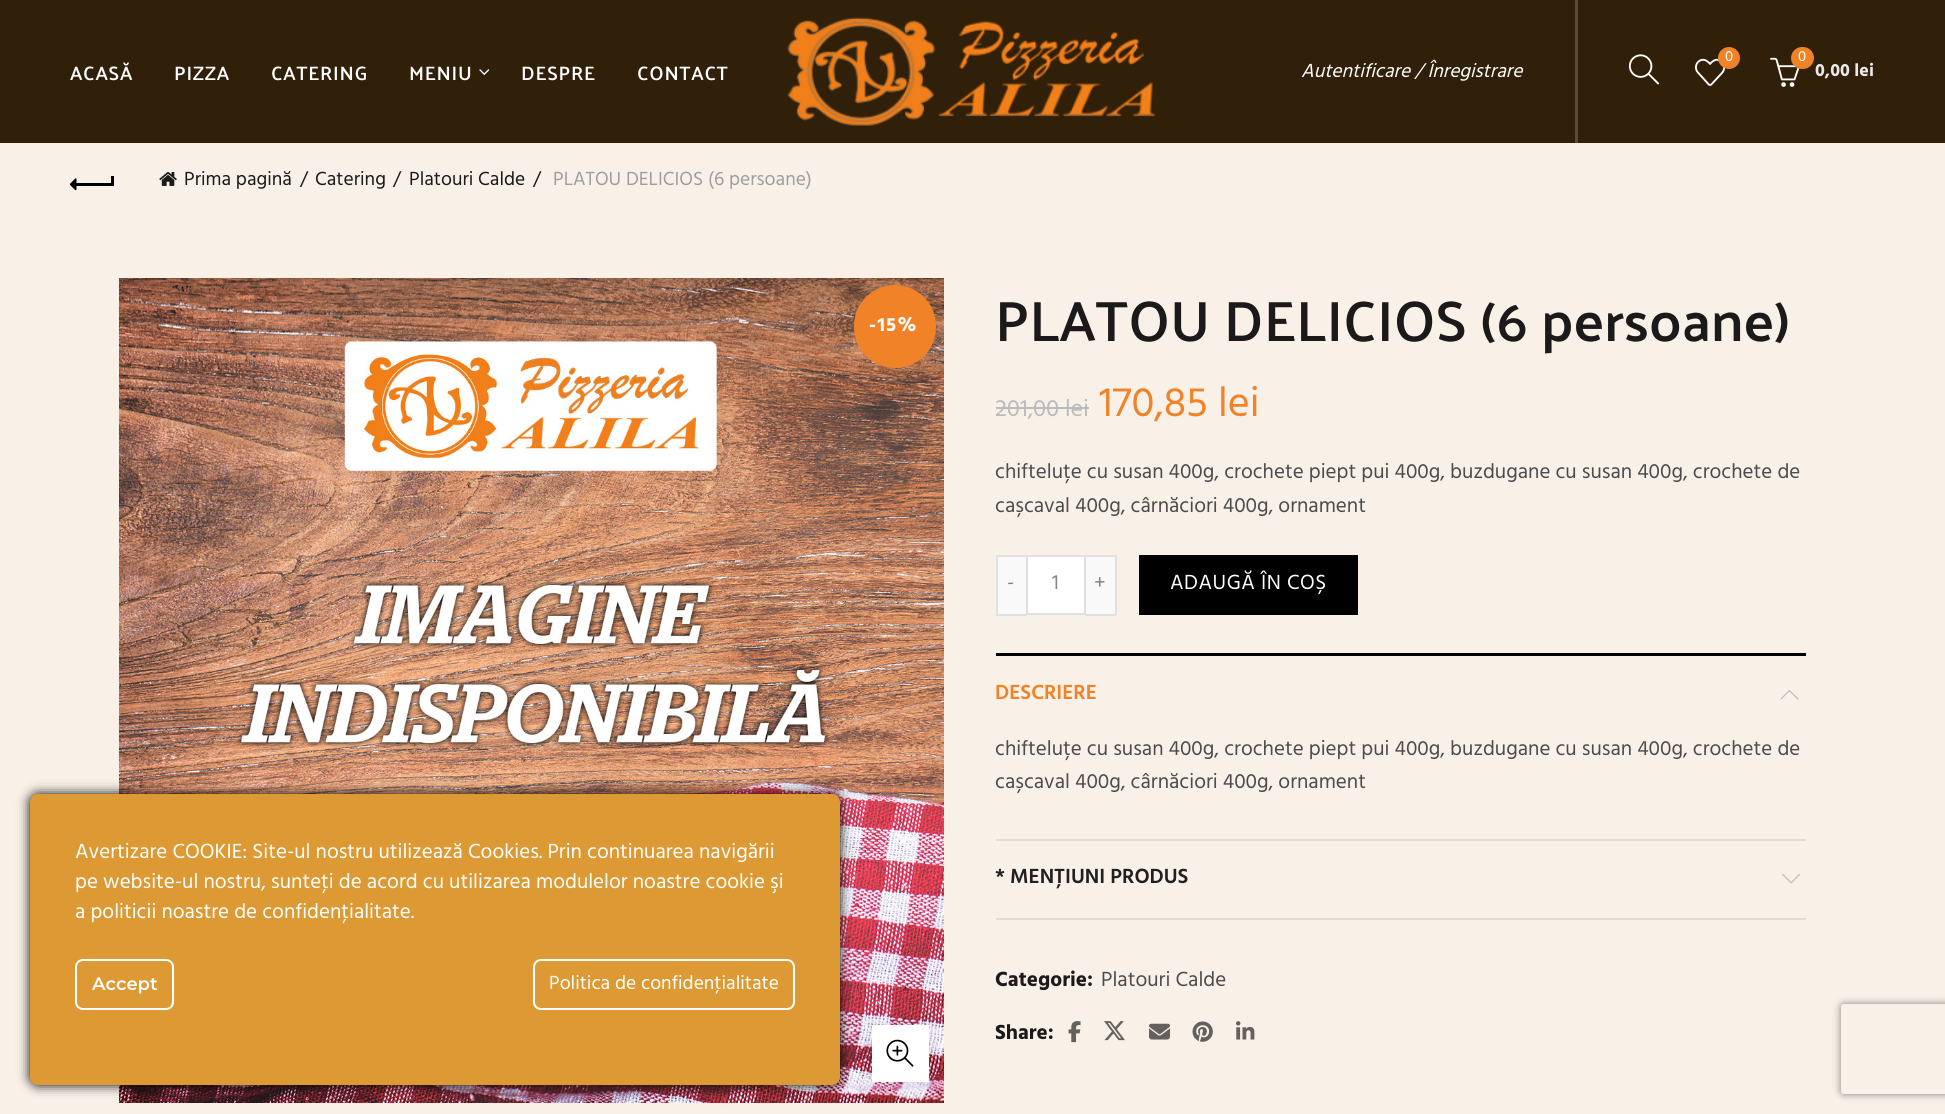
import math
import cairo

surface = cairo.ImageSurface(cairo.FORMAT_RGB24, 1945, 1114)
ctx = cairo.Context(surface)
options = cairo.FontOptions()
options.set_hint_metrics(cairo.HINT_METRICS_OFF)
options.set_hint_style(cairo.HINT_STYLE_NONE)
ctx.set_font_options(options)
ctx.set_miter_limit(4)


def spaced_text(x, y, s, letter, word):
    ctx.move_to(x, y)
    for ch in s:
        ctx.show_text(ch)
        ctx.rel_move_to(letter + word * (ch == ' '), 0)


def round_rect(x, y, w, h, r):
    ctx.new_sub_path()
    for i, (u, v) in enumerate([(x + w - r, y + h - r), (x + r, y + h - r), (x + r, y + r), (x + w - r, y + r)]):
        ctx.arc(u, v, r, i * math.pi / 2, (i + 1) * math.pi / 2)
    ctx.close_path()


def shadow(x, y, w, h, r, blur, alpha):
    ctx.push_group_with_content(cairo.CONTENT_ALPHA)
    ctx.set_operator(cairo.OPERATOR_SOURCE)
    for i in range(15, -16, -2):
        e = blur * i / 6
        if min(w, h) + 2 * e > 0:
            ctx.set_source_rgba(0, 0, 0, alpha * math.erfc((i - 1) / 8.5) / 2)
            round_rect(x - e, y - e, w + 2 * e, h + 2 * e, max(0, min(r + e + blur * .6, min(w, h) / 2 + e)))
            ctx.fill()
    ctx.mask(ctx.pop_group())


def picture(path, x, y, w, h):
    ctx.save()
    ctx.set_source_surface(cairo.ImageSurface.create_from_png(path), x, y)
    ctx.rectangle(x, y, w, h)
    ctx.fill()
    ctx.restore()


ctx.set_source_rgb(0.973, 0.945, 0.91)
ctx.paint()
ctx.set_source_rgb(0.188, 0.122, 0.039)
ctx.rectangle(0, 0, 1945, 143)
ctx.fill()
ctx.select_font_face("Palanquin SemiBold")
ctx.set_font_size(19.5)
ctx.set_source_rgb(1, 1, 1)
spaced_text(70, 80, "ACASĂ", 0.75, 0)
spaced_text(174, 80, "PIZZA", 0.75, 0)
spaced_text(271, 80, "CATERING", 0.75, 0)
spaced_text(409, 80, "MENIU", 0.75, 0)
picture("img1.png", 479, 69, 11, 6)
spaced_text(521, 80, "DESPRE", 0.75, 0)
spaced_text(637, 80, "CONTACT", 0.75, 0)
picture("img2.png", 787, 17, 368, 109)
ctx.set_source_rgb(0.341, 0.29, 0.224)
ctx.rectangle(1575, 0, 3, 143)
ctx.fill()
ctx.select_font_face("Hind", cairo.FONT_SLANT_ITALIC)
ctx.set_source_rgb(1, 1, 1)
ctx.move_to(1301, 77)
ctx.show_text("Autentificare / Înregistrare")
picture("img3.png", 1628, 54, 31, 31)
picture("img4.png", 1695, 58, 30, 28)
ctx.set_source_rgb(0.941, 0.514, 0.153)
ctx.arc(1729, 58, 11, 0, 2 * math.pi)
ctx.fill()
ctx.select_font_face("Hind")
ctx.set_font_size(15)
ctx.set_source_rgb(1, 1, 1)
ctx.move_to(1725, 61)
ctx.show_text("0")
picture("img5.png", 1770, 57, 30, 30)
ctx.set_source_rgb(0.941, 0.514, 0.153)
round_rect(1791, 47, 23, 22, 11)
ctx.fill()
ctx.set_source_rgb(1, 1, 1)
ctx.move_to(1798, 61)
ctx.show_text("0")
ctx.select_font_face("Hind", cairo.FONT_SLANT_NORMAL, cairo.FONT_WEIGHT_BOLD)
ctx.set_font_size(18)
ctx.set_source_rgb(0.918, 0.914, 0.906)
ctx.move_to(1815, 76)
ctx.show_text("0,00 lei")
ctx.set_source_rgb(0, 0, 0)
ctx.rectangle(75, 183, 38, 3)
ctx.fill()
picture("img6.png", 69, 178, 8, 13)
ctx.rectangle(111, 176, 3, 10)
ctx.fill()
picture("img7.png", 159, 172, 18, 14)
ctx.select_font_face("Hind")
ctx.set_font_size(19.5)
ctx.set_source_rgb(0.106, 0.098, 0.098)
ctx.move_to(184, 185)
ctx.show_text("Prima pagină")
ctx.move_to(300, 185)
ctx.show_text("/")
ctx.move_to(315, 185)
ctx.show_text("Catering")
ctx.move_to(393, 185)
ctx.show_text("/")
ctx.move_to(409, 185)
ctx.show_text("Platouri Calde")
ctx.move_to(533, 185)
ctx.show_text("/")
ctx.set_source_rgb(0.62, 0.62, 0.62)
ctx.move_to(553, 185)
ctx.show_text("PLATOU DELICIOS (6 persoane)")
picture("img8.png", 119, 278, 825, 825)
ctx.set_source_rgb(0, 0, 0)
shadow(872, 1025, 57, 57, 0, 7, 0.1)
ctx.set_source_rgb(1, 1, 1)
ctx.rectangle(872, 1025, 57, 57)
ctx.fill()
picture("img9.png", 886, 1039, 28, 28)
ctx.set_source_rgb(0.941, 0.514, 0.153)
round_rect(854, 285, 82, 83, 41)
ctx.fill()
ctx.select_font_face("Hind", cairo.FONT_SLANT_NORMAL, cairo.FONT_WEIGHT_BOLD)
ctx.set_source_rgb(1, 1, 1)
spaced_text(869, 331, "-15%", 1.5, 0)
ctx.select_font_face("Palanquin SemiBold")
ctx.set_font_size(57)
ctx.set_source_rgb(0.106, 0.098, 0.098)
ctx.move_to(995, 341)
ctx.show_text("PLATOU DELICIOS (6 persoane)")
ctx.select_font_face("Hind")
ctx.set_font_size(24)
ctx.set_source_rgb(0.733, 0.733, 0.733)
ctx.move_to(995, 416)
ctx.show_text("201,00 lei")
ctx.rectangle(996, 407, 93, 2)
ctx.fill()
ctx.set_font_size(42)
ctx.set_source_rgb(0.941, 0.514, 0.153)
ctx.move_to(1099, 416)
ctx.show_text("170,85 lei")
ctx.set_font_size(21)
ctx.set_source_rgb(0.298, 0.298, 0.298)
ctx.move_to(995, 478)
ctx.show_text("chifteluțe cu susan 400g, crochete piept pui 400g, buzdugane cu susan 400g, crochete de")
ctx.move_to(995, 512)
ctx.show_text("cașcaval 400g, cârnăciori 400g, ornament")
ctx.set_source_rgb(0.976, 0.976, 0.976)
ctx.rectangle(998, 557, 28, 57)
ctx.fill()
ctx.set_source_rgb(0.878, 0.878, 0.878)
ctx.rectangle(996, 555, 30, 2)
ctx.fill()
ctx.rectangle(996, 614, 30, 2)
ctx.fill()
ctx.rectangle(996, 555, 2, 60)
ctx.fill()
ctx.set_source_rgb(0.518, 0.518, 0.518)
ctx.move_to(1007, 589)
ctx.show_text("-")
ctx.set_source_rgb(1, 1, 1)
ctx.rectangle(1027, 556, 58, 58)
ctx.fill_preserve()
ctx.set_source_rgb(0.878, 0.878, 0.878)
ctx.stroke()
ctx.set_source_rgb(0.518, 0.518, 0.518)
ctx.move_to(1052, 589)
ctx.show_text("1")
ctx.set_source_rgb(0.976, 0.976, 0.976)
ctx.rectangle(1086, 557, 29, 57)
ctx.fill()
ctx.set_source_rgb(0.878, 0.878, 0.878)
ctx.rectangle(1086, 555, 30, 2)
ctx.fill()
ctx.rectangle(1115, 555, 2, 60)
ctx.fill()
ctx.rectangle(1086, 614, 30, 2)
ctx.fill()
ctx.set_source_rgb(0.518, 0.518, 0.518)
ctx.move_to(1094, 589)
ctx.show_text("+")
ctx.set_source_rgb(0, 0, 0)
ctx.rectangle(1139, 555, 219, 60)
ctx.fill()
ctx.set_source_rgb(1, 1, 1)
spaced_text(1170, 589, "ADAUGĂ ÎN COȘ", 0.5, 0)
ctx.set_source_rgb(0, 0, 0)
ctx.rectangle(996, 653, 810, 3)
ctx.fill()
ctx.set_source_rgb(0.886, 0.863, 0.835)
ctx.rectangle(996, 839, 810, 2)
ctx.fill()
ctx.select_font_face("Hind SemiBold")
ctx.set_source_rgb(0.941, 0.514, 0.153)
ctx.move_to(995, 699)
ctx.show_text("DESCRIERE")
picture("img10.png", 1780, 690, 19, 10)
ctx.select_font_face("Hind")
ctx.set_source_rgb(0.298, 0.298, 0.298)
ctx.move_to(995, 755)
ctx.show_text("chifteluțe cu susan 400g, crochete piept pui 400g, buzdugane cu susan 400g, crochete de")
ctx.move_to(995, 788)
ctx.show_text("cașcaval 400g, cârnăciori 400g, ornament")
ctx.set_source_rgb(0.886, 0.863, 0.835)
ctx.rectangle(996, 918, 810, 2)
ctx.fill()
ctx.select_font_face("Hind SemiBold")
ctx.set_source_rgb(0.125, 0.125, 0.125)
ctx.move_to(995, 883)
ctx.show_text("* MENŢIUNI PRODUS")
picture("img11.png", 1782, 874, 18, 10)
ctx.select_font_face("Hind", cairo.FONT_SLANT_NORMAL, cairo.FONT_WEIGHT_BOLD)
ctx.set_source_rgb(0.106, 0.098, 0.098)
ctx.move_to(995, 986)
ctx.show_text("Categorie:")
ctx.select_font_face("Hind")
ctx.set_source_rgb(0.298, 0.298, 0.298)
ctx.move_to(1101, 986)
ctx.show_text("Platouri Calde")
ctx.select_font_face("Hind", cairo.FONT_SLANT_NORMAL, cairo.FONT_WEIGHT_BOLD)
ctx.set_source_rgb(0.106, 0.098, 0.098)
ctx.move_to(995, 1039)
ctx.show_text("Share:")
picture("img12.png", 1068, 1021, 13, 22)
picture("img13.png", 1104, 1021, 21, 20)
picture("img14.png", 1149, 1023, 21, 17)
picture("img15.png", 1192, 1021, 21, 21)
picture("img16.png", 1236, 1021, 19, 19)
ctx.set_source_rgb(0, 0, 0)
shadow(30, 794, 810, 291, 8, 6, 1)
ctx.set_source_rgb(0.867, 0.6, 0.2)
round_rect(30, 794, 810, 291, 8)
ctx.fill()
ctx.select_font_face("Hind")
ctx.set_source_rgb(1, 1, 1)
ctx.move_to(75, 858)
ctx.show_text("Avertizare COOKIE: Site-ul nostru utilizează Cookies. Prin continuarea navigării")
ctx.move_to(75, 888)
ctx.show_text("pe website-ul nostru, sunteţi de acord cu utilizarea modulelor noastre cookie şi")
ctx.move_to(75, 918)
ctx.show_text("a politicii noastre de confidenţialitate.")
round_rect(76, 960, 97, 49, 7)
ctx.stroke()
ctx.select_font_face("Montserrat SemiBold")
ctx.set_font_size(18)
ctx.move_to(92, 990)
ctx.show_text("Accept")
round_rect(534, 960, 260, 49, 7)
ctx.stroke()
ctx.select_font_face("Hind")
ctx.set_font_size(19.5)
ctx.move_to(549, 989)
ctx.show_text("Politica de confidenţialitate")
ctx.save()
ctx.set_fill_rule(cairo.FILL_RULE_EVEN_ODD)
ctx.new_path()
ctx.move_to(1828, 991)
ctx.line_to(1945, 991)
ctx.line_to(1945, 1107)
ctx.line_to(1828, 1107)
ctx.close_path()
ctx.move_to(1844, 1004)
ctx.line_to(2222, 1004)
ctx.curve_to(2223.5, 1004, 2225, 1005.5, 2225, 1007)
ctx.line_to(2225, 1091)
ctx.curve_to(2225, 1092.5, 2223.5, 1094, 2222, 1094)
ctx.line_to(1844, 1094)
ctx.curve_to(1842.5, 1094, 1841, 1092.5, 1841, 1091)
ctx.line_to(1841, 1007)
ctx.curve_to(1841, 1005.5, 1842.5, 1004, 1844, 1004)
ctx.close_path()
ctx.clip()
ctx.set_source_rgb(0.502, 0.502, 0.502)
shadow(1841, 1004, 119, 90, 3, 4, 1)
ctx.restore()
surface.write_to_png("page.png")
